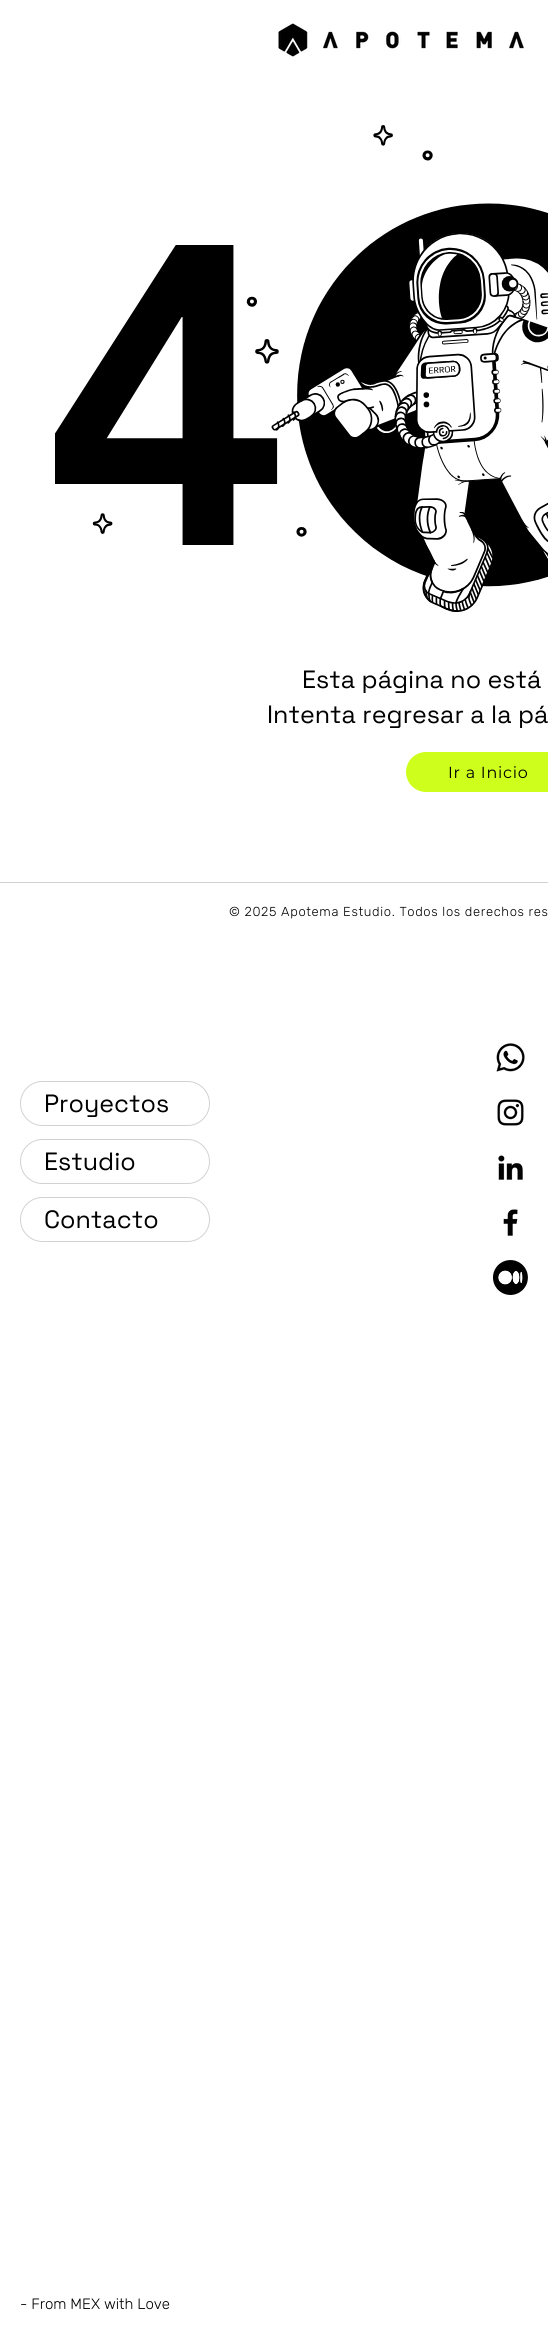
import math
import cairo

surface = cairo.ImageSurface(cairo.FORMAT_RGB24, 548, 2335)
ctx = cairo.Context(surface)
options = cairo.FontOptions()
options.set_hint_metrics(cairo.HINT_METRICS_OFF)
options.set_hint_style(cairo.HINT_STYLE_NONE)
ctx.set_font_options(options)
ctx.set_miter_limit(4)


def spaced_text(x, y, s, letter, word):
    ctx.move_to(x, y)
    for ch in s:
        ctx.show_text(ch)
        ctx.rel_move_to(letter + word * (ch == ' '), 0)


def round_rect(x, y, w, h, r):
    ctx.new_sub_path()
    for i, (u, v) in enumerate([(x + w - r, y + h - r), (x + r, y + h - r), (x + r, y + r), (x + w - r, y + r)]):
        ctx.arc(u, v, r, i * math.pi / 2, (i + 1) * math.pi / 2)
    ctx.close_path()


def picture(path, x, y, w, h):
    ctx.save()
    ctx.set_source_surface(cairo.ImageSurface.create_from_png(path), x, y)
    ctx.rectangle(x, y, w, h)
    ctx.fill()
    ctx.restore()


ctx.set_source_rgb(1, 1, 1)
ctx.paint()
picture("img1.png", 278, 23, 246, 34)
picture("img2.png", 55, 125, 493, 487)
ctx.select_font_face("Space Grotesk")
ctx.set_font_size(25)
ctx.set_source_rgb(0, 0, 0)
ctx.move_to(302, 688)
ctx.show_text("Esta página no está")
ctx.move_to(267, 723)
ctx.show_text("Intenta regresar a la pá")
ctx.set_source_rgb(0.808, 1, 0.11)
round_rect(406, 752, 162, 40, 20)
ctx.fill()
ctx.select_font_face("Montserrat")
ctx.set_font_size(16)
ctx.set_source_rgb(0, 0, 0)
spaced_text(448, 778, "Ir a Inicio", 0.75, 0)
ctx.set_source_rgb(0.824, 0.824, 0.824)
ctx.rectangle(0, 882, 548, 1)
ctx.fill()
ctx.select_font_face("Rubik Light")
ctx.set_font_size(13)
ctx.set_source_rgb(0, 0, 0)
spaced_text(229, 916, "© 2025 Apotema Estudio. Todos los derechos res", 0.65, 0)
round_rect(20.5, 1081.5, 189, 44, 22)
ctx.set_source_rgb(0.824, 0.824, 0.824)
ctx.set_line_width(1)
ctx.stroke()
ctx.select_font_face("Space Grotesk")
ctx.set_font_size(25)
ctx.set_source_rgb(0, 0, 0)
ctx.move_to(44, 1112)
ctx.show_text("Proyectos")
round_rect(20.5, 1139.5, 189, 44, 22)
ctx.set_source_rgb(0.824, 0.824, 0.824)
ctx.stroke()
ctx.set_source_rgb(0, 0, 0)
ctx.move_to(44, 1170)
ctx.show_text("Estudio")
round_rect(20.5, 1197.5, 189, 44, 22)
ctx.set_source_rgb(0.824, 0.824, 0.824)
ctx.stroke()
ctx.set_source_rgb(0, 0, 0)
ctx.move_to(44, 1228)
ctx.show_text("Contacto")
picture("img3.png", 496, 1043, 29, 29)
picture("img4.png", 497, 1099, 27, 27)
picture("img5.png", 498, 1155, 25, 25)
picture("img6.png", 503, 1209, 15, 27)
picture("img7.png", 493, 1260, 35, 35)
ctx.select_font_face("Rubik Light")
ctx.set_font_size(15)
ctx.move_to(20, 2309)
ctx.show_text("- From MEX with Love")
surface.write_to_png("page.png")
